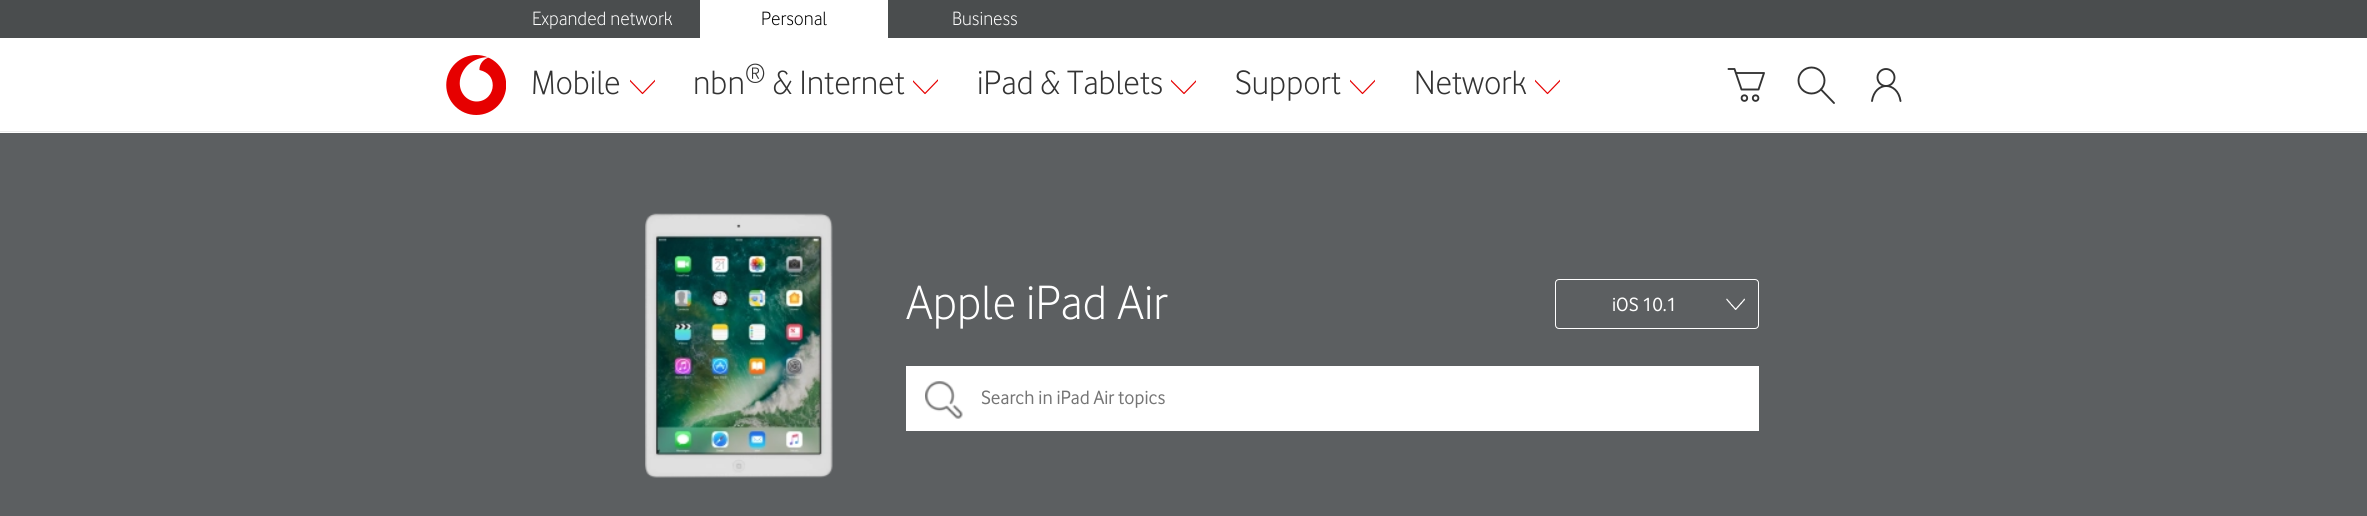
import math
import cairo

surface = cairo.ImageSurface(cairo.FORMAT_RGB24, 2367, 516)
ctx = cairo.Context(surface)
options = cairo.FontOptions()
options.set_hint_metrics(cairo.HINT_METRICS_OFF)
options.set_hint_style(cairo.HINT_STYLE_NONE)
ctx.set_font_options(options)
ctx.set_miter_limit(4)


def round_rect(x, y, w, h, r):
    ctx.new_sub_path()
    for i, (u, v) in enumerate([(x + w - r, y + h - r), (x + r, y + h - r), (x + r, y + r), (x + w - r, y + r)]):
        ctx.arc(u, v, r, i * math.pi / 2, (i + 1) * math.pi / 2)
    ctx.close_path()


def picture(path, x, y, w, h):
    ctx.save()
    ctx.set_source_surface(cairo.ImageSurface.create_from_png(path), x, y)
    ctx.rectangle(x, y, w, h)
    ctx.fill()
    ctx.restore()


ctx.set_source_rgb(1, 1, 1)
ctx.paint()
ctx.set_source_rgb(0.29, 0.302, 0.306)
ctx.rectangle(0, 0, 2367, 38)
ctx.fill()
ctx.select_font_face("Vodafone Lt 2")
ctx.set_font_size(20)
ctx.set_source_rgb(1, 1, 1)
ctx.move_to(532, 25)
ctx.show_text("Expanded network")
ctx.rectangle(700, 0, 188, 38)
ctx.fill()
ctx.set_source_rgb(0, 0, 0)
ctx.move_to(761, 25)
ctx.show_text("Personal")
ctx.set_source_rgb(1, 1, 1)
ctx.move_to(952, 25)
ctx.show_text("Business")
ctx.set_source_rgb(0.922, 0.922, 0.922)
ctx.rectangle(0, 131, 2367, 1)
ctx.fill()
picture("img1.png", 446, 55, 60, 60)
ctx.set_font_size(35)
ctx.set_source_rgb(0.2, 0.2, 0.2)
ctx.move_to(531, 94)
ctx.show_text("Mobile")
ctx.save()
ctx.rectangle(630, 73, 25, 25)
ctx.clip()
ctx.new_path()
ctx.move_to(628.5, 79)
ctx.line_to(642.5, 93.5)
ctx.line_to(656.5, 79)
ctx.set_source_rgb(0.902, 0, 0)
ctx.set_line_width(1.2)
ctx.set_line_cap(cairo.LINE_CAP_ROUND)
ctx.set_line_join(cairo.LINE_JOIN_ROUND)
ctx.stroke()
ctx.restore()
ctx.move_to(693, 94)
ctx.show_text("nbn")
ctx.set_font_size(26)
ctx.move_to(745, 81)
ctx.show_text("®")
ctx.set_font_size(35)
ctx.move_to(773, 94)
ctx.show_text("& Internet")
ctx.save()
ctx.rectangle(913, 73, 25, 25)
ctx.clip()
ctx.new_path()
ctx.move_to(911, 79)
ctx.line_to(925, 93.5)
ctx.line_to(939, 79)
ctx.set_source_rgb(0.902, 0, 0)
ctx.set_line_width(1.2)
ctx.set_line_cap(cairo.LINE_CAP_ROUND)
ctx.set_line_join(cairo.LINE_JOIN_ROUND)
ctx.stroke()
ctx.restore()
ctx.move_to(977, 94)
ctx.show_text("iPad & Tablets")
ctx.save()
ctx.rectangle(1171, 73, 25, 25)
ctx.clip()
ctx.new_path()
ctx.move_to(1169.5, 79)
ctx.line_to(1184, 93.5)
ctx.line_to(1198, 79)
ctx.set_source_rgb(0.902, 0, 0)
ctx.set_line_width(1.2)
ctx.set_line_cap(cairo.LINE_CAP_ROUND)
ctx.set_line_join(cairo.LINE_JOIN_ROUND)
ctx.stroke()
ctx.restore()
ctx.move_to(1235, 94)
ctx.show_text("Support")
ctx.save()
ctx.rectangle(1350, 73, 25, 25)
ctx.clip()
ctx.new_path()
ctx.move_to(1348.5, 79)
ctx.line_to(1362.5, 93.5)
ctx.line_to(1376.5, 79)
ctx.set_source_rgb(0.902, 0, 0)
ctx.set_line_width(1.2)
ctx.set_line_cap(cairo.LINE_CAP_ROUND)
ctx.set_line_join(cairo.LINE_JOIN_ROUND)
ctx.stroke()
ctx.restore()
ctx.move_to(1414, 94)
ctx.show_text("Network")
ctx.save()
ctx.rectangle(1535, 73, 25, 25)
ctx.clip()
ctx.new_path()
ctx.move_to(1533.5, 79)
ctx.line_to(1547.5, 93.5)
ctx.line_to(1561.5, 79)
ctx.set_source_rgb(0.902, 0, 0)
ctx.set_line_width(1.2)
ctx.set_line_cap(cairo.LINE_CAP_ROUND)
ctx.set_line_join(cairo.LINE_JOIN_ROUND)
ctx.stroke()
ctx.restore()
ctx.new_path()
ctx.move_to(1728.5, 69)
ctx.line_to(1734.5, 69)
ctx.line_to(1741.5, 89.5)
ctx.line_to(1758.5, 89.5)
ctx.line_to(1764, 73)
ctx.line_to(1736, 73)
ctx.set_line_width(1.9)
ctx.set_line_cap(cairo.LINE_CAP_ROUND)
ctx.set_line_join(cairo.LINE_JOIN_ROUND)
ctx.stroke()
ctx.arc(1744.4, 98.1, 2.8, 0, 2 * math.pi)
ctx.set_line_cap(cairo.LINE_CAP_BUTT)
ctx.set_line_join(cairo.LINE_JOIN_MITER)
ctx.stroke()
ctx.arc(1755.6, 98.1, 2.8, 0, 2 * math.pi)
ctx.stroke()
ctx.arc(1811.5, 80.5, 13, 0, 2 * math.pi)
ctx.stroke()
ctx.new_path()
ctx.move_to(1821, 89.5)
ctx.line_to(1834, 103)
ctx.set_line_cap(cairo.LINE_CAP_ROUND)
ctx.set_line_join(cairo.LINE_JOIN_ROUND)
ctx.stroke()
ctx.new_path()
ctx.move_to(1900.5, 101)
ctx.curve_to(1897.5, 81, 1875, 81, 1872, 101)
ctx.stroke()
ctx.arc(1886, 77.5, 8.5, 0, 2 * math.pi)
ctx.set_line_cap(cairo.LINE_CAP_BUTT)
ctx.set_line_join(cairo.LINE_JOIN_MITER)
ctx.stroke()
ctx.set_source_rgb(0.361, 0.373, 0.38)
ctx.rectangle(0, 133, 2367, 383)
ctx.fill()
picture("img2.png", 645, 213, 188, 265)
ctx.select_font_face("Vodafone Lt")
ctx.set_font_size(50)
ctx.set_source_rgb(1, 1, 1)
ctx.move_to(906, 319)
ctx.show_text("Apple iPad Air")
round_rect(1555.5, 279.5, 203, 49, 3.5)
ctx.set_line_width(1)
ctx.stroke()
ctx.select_font_face("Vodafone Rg")
ctx.set_font_size(20)
ctx.move_to(1612, 311)
ctx.show_text("iOS 10.1")
picture("img3.png", 1726, 298, 19, 12)
ctx.rectangle(906, 366, 853, 65)
ctx.fill()
picture("img4.png", 925, 381, 38, 38)
ctx.set_source_rgb(0.459, 0.459, 0.459)
ctx.move_to(981, 404)
ctx.show_text("Search in iPad Air topics")
surface.write_to_png("page.png")
